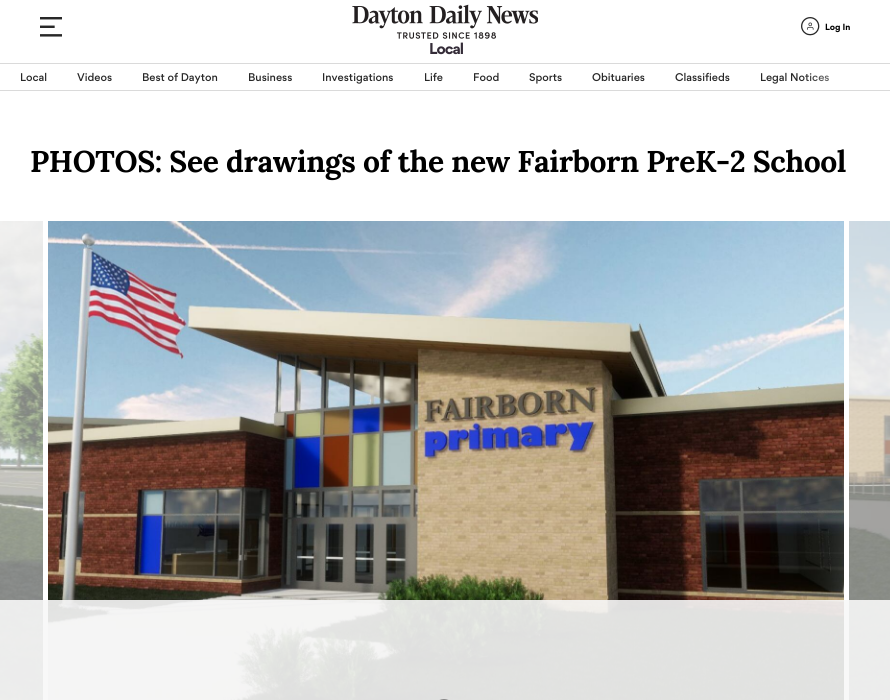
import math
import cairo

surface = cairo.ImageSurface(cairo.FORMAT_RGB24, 890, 700)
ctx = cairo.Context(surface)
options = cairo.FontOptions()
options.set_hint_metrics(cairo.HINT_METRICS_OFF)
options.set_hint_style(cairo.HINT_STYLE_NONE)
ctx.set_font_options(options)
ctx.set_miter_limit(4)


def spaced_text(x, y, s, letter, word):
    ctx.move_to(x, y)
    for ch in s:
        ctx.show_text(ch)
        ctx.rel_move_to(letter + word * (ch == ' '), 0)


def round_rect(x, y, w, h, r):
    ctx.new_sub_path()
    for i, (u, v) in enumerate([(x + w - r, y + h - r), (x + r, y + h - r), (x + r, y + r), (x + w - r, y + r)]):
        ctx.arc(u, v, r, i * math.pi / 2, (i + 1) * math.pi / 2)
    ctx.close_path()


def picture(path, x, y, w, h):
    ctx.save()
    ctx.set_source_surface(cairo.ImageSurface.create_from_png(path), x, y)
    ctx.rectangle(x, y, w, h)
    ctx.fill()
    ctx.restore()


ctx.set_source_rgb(1, 1, 1)
ctx.paint()
picture("img1.png", 40, 17, 22, 20)
picture("img2.png", 352, 4, 186, 35)
picture("img3.png", 801, 17, 19, 19)
ctx.select_font_face("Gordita", cairo.FONT_SLANT_NORMAL, cairo.FONT_WEIGHT_BOLD)
ctx.set_font_size(8)
ctx.set_source_rgb(0, 0, 0)
ctx.move_to(825, 30)
ctx.show_text("Log In")
ctx.set_font_size(14)
ctx.set_source_rgb(0.204, 0.173, 0.22)
spaced_text(429, 54, "Local", -1, 0)
ctx.set_source_rgb(0.855, 0.855, 0.855)
ctx.rectangle(0, 63, 890, 1)
ctx.fill()
ctx.rectangle(0, 90, 890, 1)
ctx.fill()
ctx.select_font_face("Gordita Medium")
ctx.set_font_size(10)
ctx.set_source_rgb(0.157, 0.157, 0.157)
ctx.move_to(20, 81)
ctx.show_text("Local")
ctx.move_to(77, 81)
ctx.show_text("Videos")
ctx.move_to(142, 81)
ctx.show_text("Best of Dayton")
ctx.move_to(248, 81)
ctx.show_text("Business")
ctx.move_to(322, 81)
ctx.show_text("Investigations")
ctx.move_to(424, 81)
ctx.show_text("Life")
ctx.move_to(473, 81)
ctx.show_text("Food")
ctx.move_to(529, 81)
ctx.show_text("Sports")
ctx.move_to(592, 81)
ctx.show_text("Obituaries")
ctx.move_to(675, 81)
ctx.show_text("Classifieds")
ctx.move_to(760, 81)
ctx.show_text("Legal Notices")
gradient = cairo.LinearGradient(890, 77, 801, 77)
gradient.add_color_stop_rgba(0, 1, 1, 1, 1)
gradient.add_color_stop_rgba(1, 1, 1, 1, 0)
ctx.set_source(gradient)
ctx.rectangle(803, 73, 26, 9)
ctx.fill()
ctx.select_font_face("Lora", cairo.FONT_SLANT_NORMAL, cairo.FONT_WEIGHT_BOLD)
ctx.set_font_size(30)
ctx.set_source_rgb(0, 0, 0)
spaced_text(30, 172, "PHOTOS: See drawings of the new Fairborn PreK-2 School", -0.38, 0)
picture("img4.png", 0, 221, 43, 479)
picture("img5.png", 48, 221, 796, 479)
picture("img6.png", 849, 221, 41, 479)
ctx.set_source_rgba(0.969, 0.969, 0.969, 0.9)
ctx.rectangle(0, 600, 890, 100)
ctx.fill()
round_rect(433.5, 699.5, 21, 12, 10.5)
ctx.set_source_rgb(0.945, 0.945, 0.945)
ctx.set_line_width(1)
ctx.stroke()
round_rect(433.5, 699.5, 21, 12, 10.5)
ctx.set_source_rgb(0.533, 0.533, 0.533)
ctx.stroke()
surface.write_to_png("page.png")
